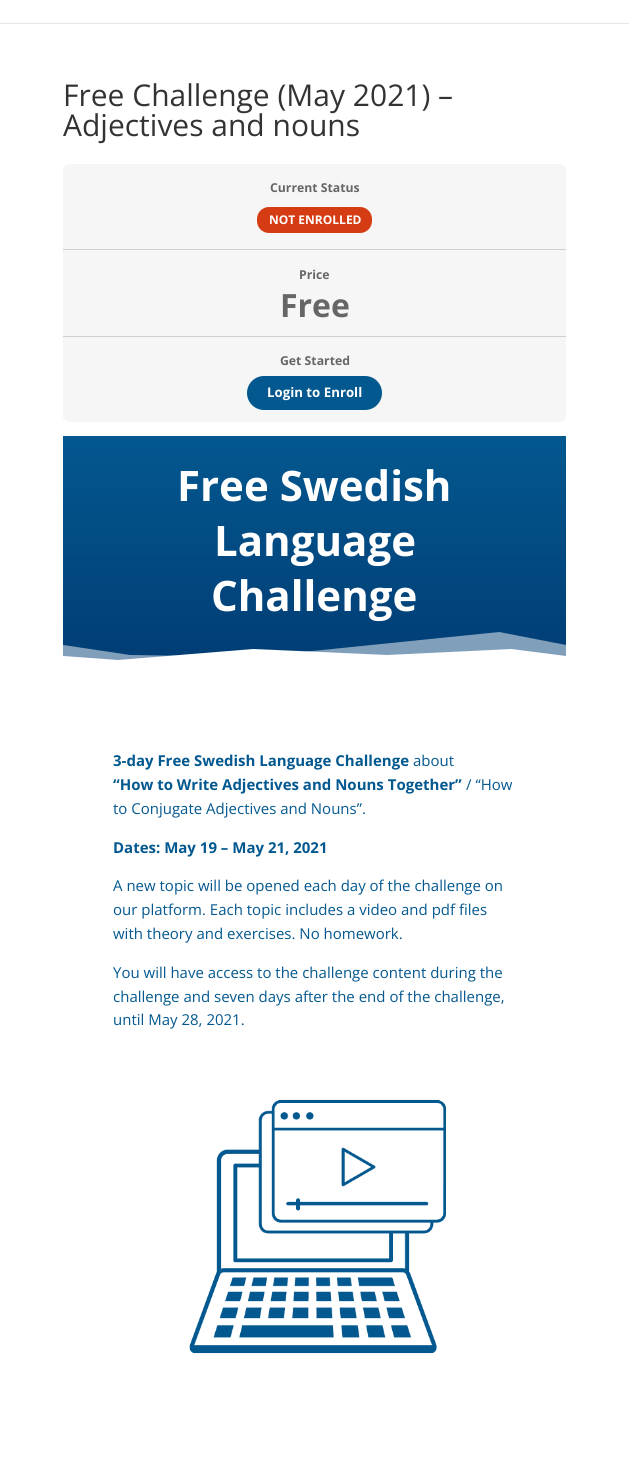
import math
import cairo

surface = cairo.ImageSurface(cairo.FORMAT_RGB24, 629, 1474)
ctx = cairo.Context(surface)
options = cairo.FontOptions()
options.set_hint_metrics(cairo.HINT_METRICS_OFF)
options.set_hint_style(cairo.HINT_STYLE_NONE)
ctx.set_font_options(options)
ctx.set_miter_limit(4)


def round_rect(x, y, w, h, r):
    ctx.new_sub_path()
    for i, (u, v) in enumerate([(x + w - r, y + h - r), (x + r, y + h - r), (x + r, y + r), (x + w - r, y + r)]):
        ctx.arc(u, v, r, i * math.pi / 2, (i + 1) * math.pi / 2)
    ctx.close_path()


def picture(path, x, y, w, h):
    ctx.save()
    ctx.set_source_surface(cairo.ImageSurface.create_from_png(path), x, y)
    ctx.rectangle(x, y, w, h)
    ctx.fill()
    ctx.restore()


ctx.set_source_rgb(1, 1, 1)
ctx.paint()
ctx.set_source_rgb(0.902, 0.902, 0.902)
ctx.rectangle(0, 23, 629, 1)
ctx.fill()
ctx.select_font_face("Open Sans")
ctx.set_font_size(30)
ctx.set_source_rgb(0.2, 0.2, 0.2)
ctx.move_to(63, 106)
ctx.show_text("Free Challenge (May 2021) –")
ctx.move_to(63, 136)
ctx.show_text("Adjectives and nouns")
ctx.set_source_rgb(0.961, 0.961, 0.961)
round_rect(63, 164, 503, 258, 6)
ctx.fill()
ctx.set_source_rgb(0.816, 0.816, 0.816)
ctx.rectangle(63, 249, 503, 1)
ctx.fill()
ctx.select_font_face("Open Sans", cairo.FONT_SLANT_NORMAL, cairo.FONT_WEIGHT_BOLD)
ctx.set_font_size(12.25)
ctx.set_source_rgb(0.4, 0.4, 0.4)
ctx.move_to(270, 192)
ctx.show_text("Current Status")
ctx.set_source_rgb(0.835, 0.235, 0.075)
round_rect(257, 207, 115, 26, 12)
ctx.fill()
ctx.set_font_size(12)
ctx.set_source_rgb(1, 1, 1)
ctx.move_to(269, 224)
ctx.show_text("NOT ENROLLED")
ctx.set_source_rgb(0.816, 0.816, 0.816)
ctx.rectangle(63, 336, 503, 1)
ctx.fill()
ctx.set_font_size(12.25)
ctx.set_source_rgb(0.4, 0.4, 0.4)
ctx.move_to(299, 279)
ctx.show_text("Price")
ctx.set_font_size(32)
ctx.move_to(280, 317)
ctx.show_text("Free")
ctx.set_font_size(12.25)
ctx.move_to(280, 365)
ctx.show_text("Get Started")
ctx.set_source_rgb(0.012, 0.345, 0.561)
round_rect(247, 376, 135, 34, 17)
ctx.fill()
ctx.set_font_size(13.25)
ctx.set_source_rgb(1, 1, 1)
ctx.move_to(267, 397)
ctx.show_text("Login to Enroll")
gradient = cairo.LinearGradient(315, 436, 315, 669)
gradient.add_color_stop_rgba(0, 0.012, 0.345, 0.561, 1)
gradient.add_color_stop_rgba(1, 0.004, 0.235, 0.455, 1)
ctx.set_source(gradient)
ctx.rectangle(63, 436, 503, 224)
ctx.fill()
ctx.set_font_size(42)
ctx.set_source_rgb(1, 1, 1)
ctx.move_to(177, 501)
ctx.show_text("Free Swedish")
ctx.move_to(214, 556)
ctx.show_text("Language")
ctx.move_to(211, 611)
ctx.show_text("Challenge")
ctx.set_source_rgba(1, 1, 1, 0.5)
ctx.new_path()
ctx.move_to(566, 645)
ctx.line_to(499, 632)
ctx.line_to(253, 657)
ctx.line_to(130, 655)
ctx.line_to(63, 645)
ctx.line_to(63, 669)
ctx.line_to(566, 669)
ctx.close_path()
ctx.fill()
ctx.set_source_rgb(1, 1, 1)
ctx.new_path()
ctx.move_to(566, 656)
ctx.line_to(511, 649)
ctx.line_to(387, 655)
ctx.line_to(253, 649)
ctx.line_to(118, 660)
ctx.line_to(63, 656)
ctx.line_to(63, 669)
ctx.line_to(566, 669)
ctx.close_path()
ctx.fill()
ctx.set_font_size(15)
ctx.set_source_rgb(0.012, 0.345, 0.561)
ctx.move_to(113, 766)
ctx.show_text("3-day Free Swedish Language Challenge")
ctx.select_font_face("Open Sans")
ctx.move_to(413, 766)
ctx.show_text("about")
ctx.select_font_face("Open Sans", cairo.FONT_SLANT_NORMAL, cairo.FONT_WEIGHT_BOLD)
ctx.move_to(113, 790)
ctx.show_text("“How to Write Adjectives and Nouns Together”")
ctx.select_font_face("Open Sans")
ctx.move_to(466, 790)
ctx.show_text("/ “How")
ctx.move_to(113, 814)
ctx.show_text("to Conjugate Adjectives and Nouns”.")
ctx.select_font_face("Open Sans", cairo.FONT_SLANT_NORMAL, cairo.FONT_WEIGHT_BOLD)
ctx.move_to(113, 853)
ctx.show_text("Dates: May 19 – May 21, 2021")
ctx.select_font_face("Open Sans")
ctx.move_to(113, 891)
ctx.show_text("A new topic will be opened each day of the challenge on")
ctx.move_to(113, 915)
ctx.show_text("our platform. Each topic includes a video and pdf files")
ctx.move_to(113, 939)
ctx.show_text("with theory and exercises. No homework.")
ctx.move_to(113, 978)
ctx.show_text("You will have access to the challenge content during the")
ctx.move_to(113, 1002)
ctx.show_text("challenge and seven days after the end of the challenge,")
ctx.move_to(113, 1025)
ctx.show_text("until May 28, 2021.")
picture("img1.png", 189, 1099, 257, 255)
ctx.set_source_rgb(0.835, 0.235, 0.075)
ctx.new_path()
ctx.move_to(270, 204.5)
ctx.line_to(266.5, 208)
ctx.line_to(270, 211.5)
ctx.line_to(270.5, 211)
ctx.line_to(267, 207.5)
ctx.close_path()
ctx.fill()
surface.write_to_png("page.png")
